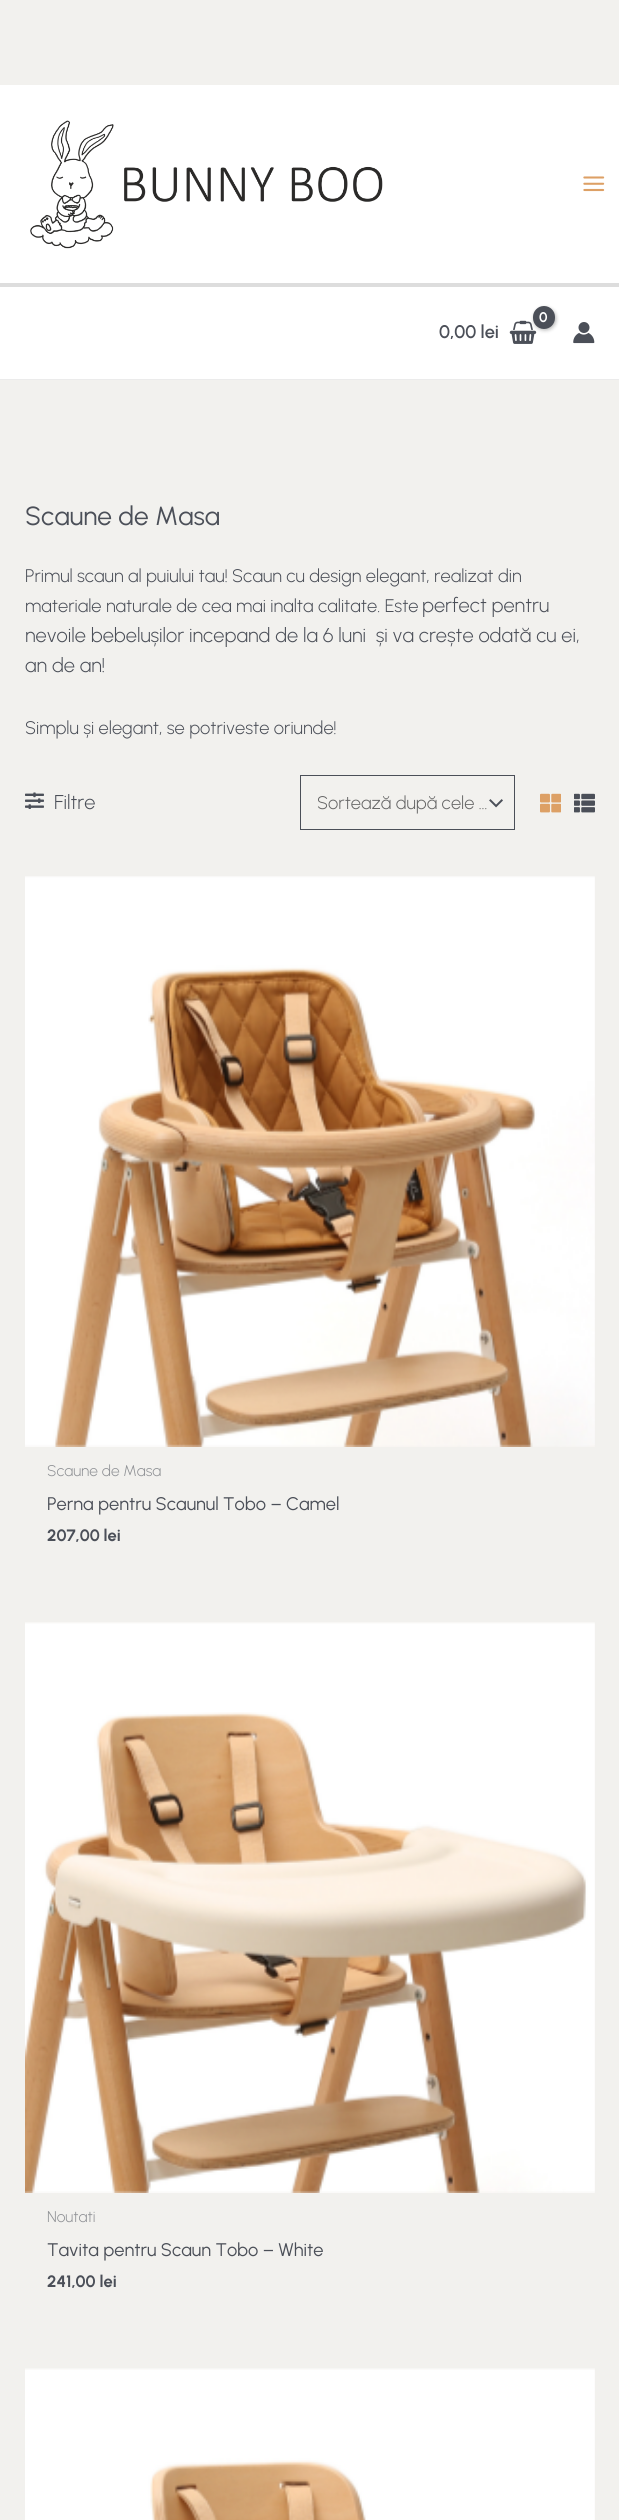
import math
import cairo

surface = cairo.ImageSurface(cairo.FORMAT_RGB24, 619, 2520)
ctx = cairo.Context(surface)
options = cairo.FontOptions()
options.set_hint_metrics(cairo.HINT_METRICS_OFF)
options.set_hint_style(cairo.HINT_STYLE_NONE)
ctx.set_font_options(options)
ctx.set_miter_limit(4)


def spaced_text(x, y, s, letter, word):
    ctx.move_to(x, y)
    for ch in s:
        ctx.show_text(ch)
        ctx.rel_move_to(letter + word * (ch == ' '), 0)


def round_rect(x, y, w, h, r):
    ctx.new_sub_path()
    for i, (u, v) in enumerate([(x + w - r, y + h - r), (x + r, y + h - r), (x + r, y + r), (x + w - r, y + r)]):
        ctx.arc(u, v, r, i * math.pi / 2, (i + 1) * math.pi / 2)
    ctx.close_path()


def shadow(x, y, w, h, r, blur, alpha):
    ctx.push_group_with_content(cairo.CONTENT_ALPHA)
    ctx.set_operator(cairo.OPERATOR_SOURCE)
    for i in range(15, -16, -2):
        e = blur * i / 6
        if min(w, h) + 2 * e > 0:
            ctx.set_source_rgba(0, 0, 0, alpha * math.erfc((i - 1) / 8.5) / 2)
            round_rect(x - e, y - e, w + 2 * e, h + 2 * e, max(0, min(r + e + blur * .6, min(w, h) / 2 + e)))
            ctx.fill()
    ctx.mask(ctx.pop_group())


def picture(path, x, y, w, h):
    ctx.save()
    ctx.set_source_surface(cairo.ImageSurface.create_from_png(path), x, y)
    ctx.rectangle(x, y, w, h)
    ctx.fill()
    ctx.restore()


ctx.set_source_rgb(0.949, 0.945, 0.933)
ctx.paint()
ctx.set_source_rgb(1, 1, 1)
ctx.rectangle(0, 85, 619, 198)
ctx.fill()
ctx.set_source_rgb(0.867, 0.867, 0.867)
ctx.rectangle(0, 283, 619, 4)
ctx.fill()
picture("img1.png", 30, 120, 353, 129)
picture("img2.png", 583, 176, 22, 16)
ctx.set_source_rgb(1, 1, 1)
ctx.rectangle(0, 287, 619, 92)
ctx.fill()
ctx.set_source_rgb(0.918, 0.918, 0.918)
ctx.rectangle(0, 379, 619, 1)
ctx.fill()
picture("img3.png", 509, 320, 28, 24)
ctx.set_source_rgb(0, 0, 0)
shadow(534, 308, 22, 22, 11, 2, 0.3)
ctx.set_source_rgb(0.294, 0.31, 0.345)
round_rect(533, 306, 22, 23, 11)
ctx.fill()
ctx.select_font_face("Urbanist", cairo.FONT_SLANT_NORMAL, cairo.FONT_WEIGHT_BOLD)
ctx.set_font_size(14)
ctx.set_source_rgb(1, 1, 1)
spaced_text(539, 322, "0", -1, 0)
ctx.select_font_face("Urbanist SemiBold")
ctx.set_font_size(18.25)
ctx.set_source_rgb(0.294, 0.31, 0.345)
ctx.move_to(439, 338)
ctx.show_text("0,00 lei")
picture("img4.png", 573, 322, 22, 22)
ctx.select_font_face("Urbanist")
ctx.set_font_size(26.25)
ctx.move_to(25, 525)
ctx.show_text("Scaune de Masa")
ctx.select_font_face("Urbanist Light")
ctx.set_font_size(18.25)
ctx.move_to(25, 582)
ctx.show_text("Primul scaun al puiului tau! Scaun cu design elegant, realizat din")
ctx.move_to(25, 612)
ctx.show_text("materiale naturale de cea mai inalta calitate. Este")
ctx.set_font_size(20)
ctx.move_to(422, 612)
ctx.show_text("perfect pentru")
ctx.move_to(25, 642)
ctx.show_text("nevoile bebelușilor incepand de la 6 luni  și va crește odată cu ei,")
ctx.move_to(25, 672)
ctx.show_text("an de an!")
ctx.set_font_size(18.25)
ctx.move_to(25, 734)
ctx.show_text("Simplu și elegant, se potriveste oriunde!")
picture("img5.png", 25, 792, 19, 17)
ctx.set_font_size(20)
ctx.move_to(54, 809)
ctx.show_text("Filtre")
ctx.rectangle(300.5, 775.5, 214, 54)
ctx.set_line_width(1)
ctx.stroke()
picture("img6.png", 489, 799, 14, 9)
ctx.set_font_size(18.25)
ctx.set_source_rgb(0.4, 0.4, 0.4)
ctx.move_to(317, 809)
ctx.show_text("Sortează după cele …")
picture("img7.png", 540, 793, 21, 20)
picture("img8.png", 574, 793, 21, 20)
picture("img9.png", 25, 876, 570, 571)
ctx.set_font_size(15.5)
ctx.set_source_rgb(0.557, 0.565, 0.58)
ctx.move_to(47, 1476)
ctx.show_text("Scaune de Masa")
ctx.select_font_face("Urbanist")
ctx.set_font_size(18.25)
ctx.set_source_rgb(0.294, 0.31, 0.345)
ctx.move_to(47, 1510)
ctx.show_text("Perna pentru Scaunul Tobo – Camel")
ctx.select_font_face("Urbanist", cairo.FONT_SLANT_NORMAL, cairo.FONT_WEIGHT_BOLD)
ctx.set_font_size(16.5)
ctx.move_to(47, 1541)
ctx.show_text("207,00 lei")
picture("img10.png", 25, 1622, 570, 571)
ctx.select_font_face("Urbanist Light")
ctx.set_font_size(15.5)
ctx.set_source_rgb(0.557, 0.565, 0.58)
ctx.move_to(47, 2222)
ctx.show_text("Noutati")
ctx.select_font_face("Urbanist")
ctx.set_font_size(18.25)
ctx.set_source_rgb(0.294, 0.31, 0.345)
ctx.move_to(47, 2256)
ctx.show_text("Tavita pentru Scaun Tobo – White")
ctx.select_font_face("Urbanist", cairo.FONT_SLANT_NORMAL, cairo.FONT_WEIGHT_BOLD)
ctx.set_font_size(16.5)
ctx.move_to(47, 2287)
ctx.show_text("241,00 lei")
picture("img11.png", 25, 2368, 570, 152)
surface.write_to_png("page.png")
